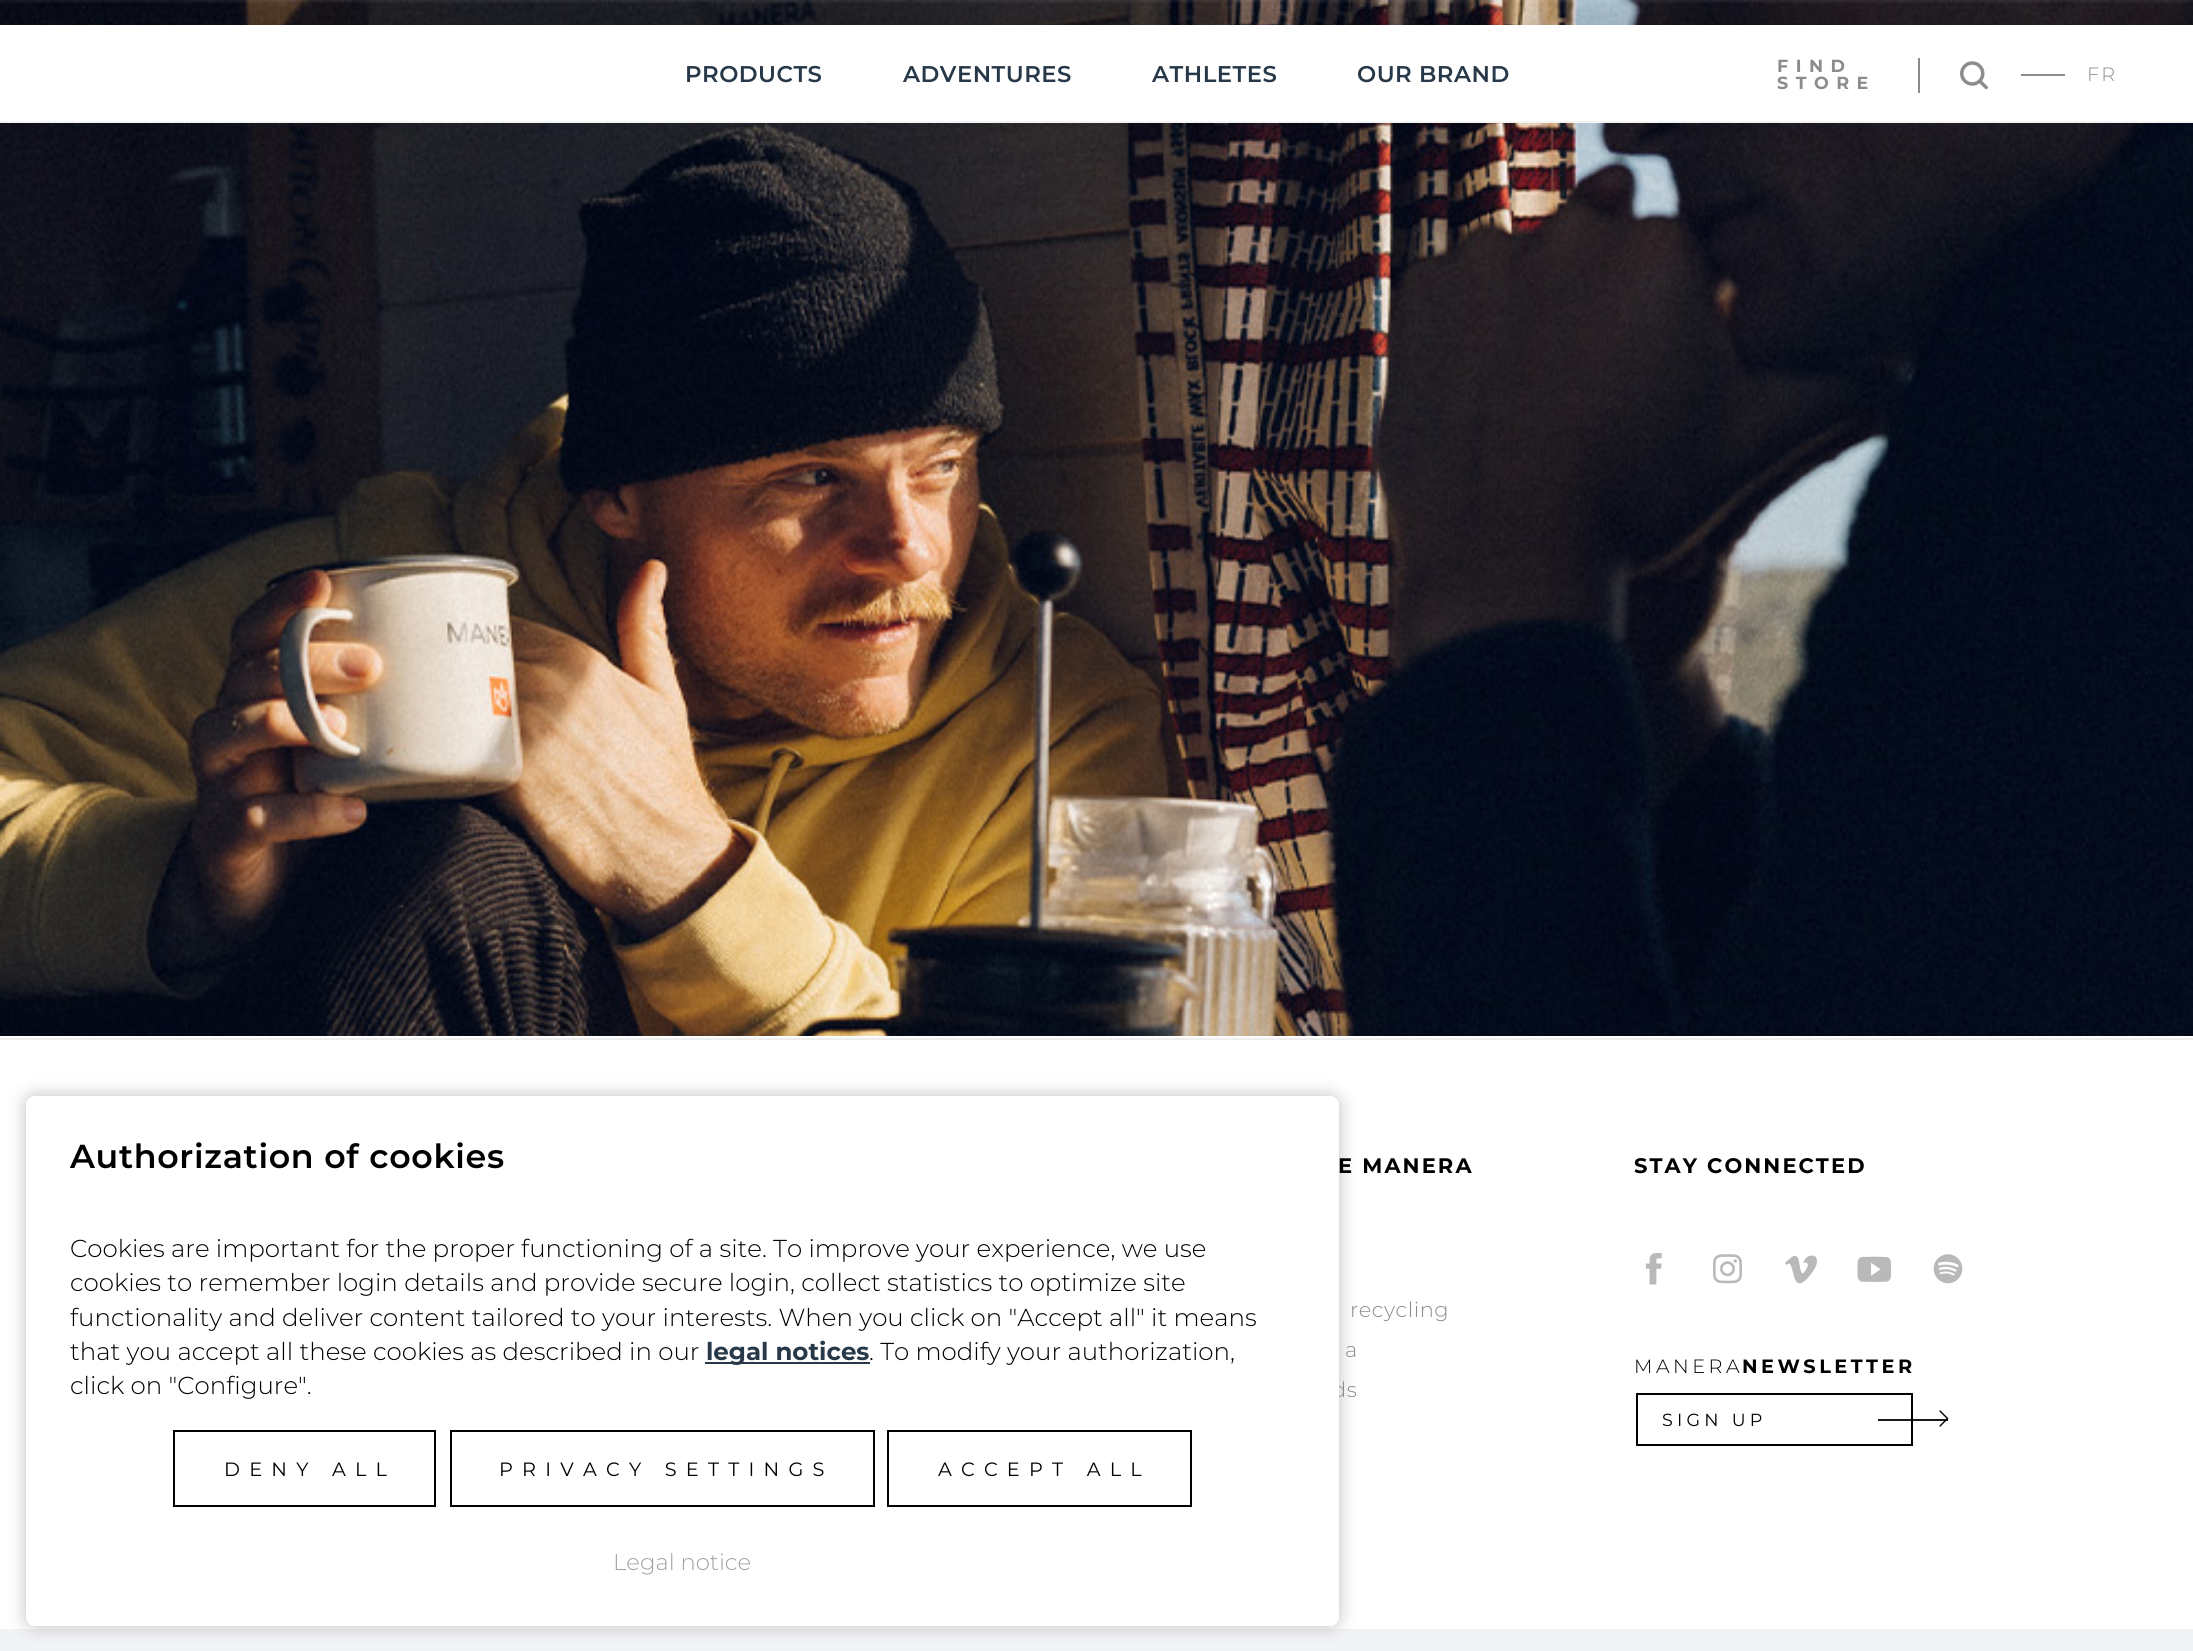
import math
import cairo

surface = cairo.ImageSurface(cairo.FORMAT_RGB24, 2193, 1651)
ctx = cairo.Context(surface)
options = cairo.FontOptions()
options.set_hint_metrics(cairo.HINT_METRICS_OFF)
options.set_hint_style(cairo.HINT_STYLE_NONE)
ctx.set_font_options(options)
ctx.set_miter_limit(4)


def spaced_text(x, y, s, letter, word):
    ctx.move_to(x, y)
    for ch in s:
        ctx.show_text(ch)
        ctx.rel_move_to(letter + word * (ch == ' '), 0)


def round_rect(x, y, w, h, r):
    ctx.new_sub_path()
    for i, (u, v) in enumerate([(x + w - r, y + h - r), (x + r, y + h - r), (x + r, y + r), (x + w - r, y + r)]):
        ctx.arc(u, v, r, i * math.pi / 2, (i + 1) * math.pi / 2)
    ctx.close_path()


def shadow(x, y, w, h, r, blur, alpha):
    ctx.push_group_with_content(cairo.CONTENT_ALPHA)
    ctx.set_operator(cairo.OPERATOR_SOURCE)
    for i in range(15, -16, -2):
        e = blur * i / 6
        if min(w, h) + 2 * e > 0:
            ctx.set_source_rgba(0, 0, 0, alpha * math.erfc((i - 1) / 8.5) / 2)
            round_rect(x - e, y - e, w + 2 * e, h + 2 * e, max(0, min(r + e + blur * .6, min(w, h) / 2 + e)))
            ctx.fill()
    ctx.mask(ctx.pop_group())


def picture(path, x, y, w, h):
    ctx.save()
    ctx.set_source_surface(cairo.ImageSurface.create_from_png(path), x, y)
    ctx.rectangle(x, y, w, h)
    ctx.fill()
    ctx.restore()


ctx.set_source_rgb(1, 1, 1)
ctx.paint()
picture("img1.png", 0, 0, 2193, 1036)
ctx.set_source_rgb(0.949, 0.953, 0.965)
ctx.rectangle(0, 1629, 2193, 22)
ctx.fill()
ctx.set_source_rgb(0, 0, 0)
shadow(26, 1096, 1313, 530, 9, 9, 0.25)
ctx.select_font_face("Montserrat Light")
ctx.set_font_size(21)
ctx.set_source_rgb(0.549, 0.549, 0.549)
spaced_text(1332, 1397, "ds", 0.5, 0)
ctx.set_source_rgb(1, 1, 1)
round_rect(26, 1096, 1313, 530, 9)
ctx.fill()
ctx.select_font_face("Montserrat SemiBold")
ctx.set_font_size(33.25)
ctx.set_source_rgb(0, 0, 0)
spaced_text(70, 1168, "Authorization of cookies", 0.7, 0)
ctx.select_font_face("Montserrat Light")
ctx.set_font_size(24.5)
ctx.move_to(70, 1257)
ctx.show_text("Cookies are important for the proper functioning of a site. To improve your experience, we use")
ctx.move_to(70, 1291)
ctx.show_text("cookies to remember login details and provide secure login, collect statistics to optimize site")
ctx.move_to(70, 1326)
ctx.show_text("functionality and deliver content tailored to your interests. When you click on \"Accept all\" it means")
ctx.move_to(70, 1360)
ctx.show_text("that you accept all these cookies as described in our")
ctx.set_source_rgb(0.153, 0.22, 0.282)
ctx.rectangle(705, 1362, 165, 2)
ctx.fill()
ctx.select_font_face("Montserrat", cairo.FONT_SLANT_NORMAL, cairo.FONT_WEIGHT_BOLD)
ctx.move_to(706, 1360)
ctx.show_text("legal notices")
ctx.select_font_face("Montserrat Light")
ctx.set_source_rgb(0, 0, 0)
ctx.move_to(869, 1360)
ctx.show_text(". To modify your authorization,")
ctx.move_to(70, 1394)
ctx.show_text("click on \"Configure\".")
ctx.rectangle(174, 1431, 261, 75)
ctx.stroke()
ctx.select_font_face("Montserrat")
ctx.set_font_size(19.25)
spaced_text(224, 1476, "DENY ALL", 9.25, 0)
ctx.rectangle(451, 1431, 423, 75)
ctx.stroke()
spaced_text(499, 1476, "PRIVACY SETTINGS", 9.25, 0)
ctx.rectangle(888, 1431, 303, 75)
ctx.stroke()
spaced_text(938, 1476, "ACCEPT ALL", 9.25, 0)
ctx.select_font_face("Montserrat Light")
ctx.set_font_size(22.75)
ctx.set_source_rgb(0.635, 0.635, 0.635)
ctx.move_to(613, 1570)
ctx.show_text("Legal notice")
ctx.set_source_rgb(0.004, 0.004, 0.004)
shadow(-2, 7, 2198, 102, 0, 14.5, 0.1)
ctx.set_source_rgb(1, 1, 1)
ctx.rectangle(0, 25, 2193, 96)
ctx.fill()
ctx.set_source_rgb(0.957, 0.957, 0.957)
ctx.rectangle(0, 121, 2193, 2)
ctx.fill()
ctx.select_font_face("Montserrat SemiBold")
ctx.set_source_rgb(0.153, 0.22, 0.282)
spaced_text(685, 82, "PRODUCTS", 0.5, 0)
spaced_text(903, 82, "ADVENTURES", 0.5, 0)
spaced_text(1152, 82, "ATHLETES", 0.5, 0)
spaced_text(1357, 82, "OUR BRAND", 0.5, 0)
ctx.set_source_rgb(0.549, 0.549, 0.549)
ctx.rectangle(1918, 58, 2, 35)
ctx.fill()
ctx.select_font_face("Montserrat", cairo.FONT_SLANT_NORMAL, cairo.FONT_WEIGHT_BOLD)
ctx.set_font_size(17.5)
spaced_text(1777, 72, "FIND", 7.5, 0)
spaced_text(1777, 89, "STORE", 7.5, 0)
picture("img2.png", 1960, 61, 28, 28)
ctx.rectangle(2021, 74, 44, 2)
ctx.fill()
ctx.select_font_face("Montserrat Light")
ctx.set_font_size(19.25)
spaced_text(2087, 81, "FR", 2, 0)
ctx.set_source_rgb(0.933, 0.933, 0.933)
ctx.rectangle(0, 1038, 2193, 2)
ctx.fill()
ctx.select_font_face("Montserrat", cairo.FONT_SLANT_NORMAL, cairo.FONT_WEIGHT_BOLD)
ctx.set_font_size(21)
ctx.set_source_rgb(0, 0, 0)
spaced_text(1338, 1173, "E MANERA", 2.1, 0)
ctx.select_font_face("Montserrat Light")
ctx.set_source_rgb(0.549, 0.549, 0.549)
spaced_text(1350, 1317, "recycling", 0.5, 0)
spaced_text(1345, 1357, "a", 0.5, 0)
ctx.select_font_face("Montserrat", cairo.FONT_SLANT_NORMAL, cairo.FONT_WEIGHT_BOLD)
ctx.set_source_rgb(0, 0, 0)
spaced_text(1634, 1173, "STAY CONNECTED", 2.1, 0)
picture("img3.png", 1645, 1253, 17, 32)
picture("img4.png", 1713, 1254, 29, 30)
picture("img5.png", 1785, 1255, 32, 29)
picture("img6.png", 1857, 1256, 35, 26)
picture("img7.png", 1933, 1254, 30, 30)
ctx.select_font_face("Montserrat Light")
ctx.set_font_size(19.25)
spaced_text(1634, 1373, "MANERA", 3.5, 0)
ctx.select_font_face("Montserrat", cairo.FONT_SLANT_NORMAL, cairo.FONT_WEIGHT_BOLD)
spaced_text(1742, 1373, "NEWSLETTER", 3.5, 0)
ctx.set_source_rgb(0.11, 0.106, 0.125)
ctx.rectangle(1878, 1419, 70, 2)
ctx.fill()
ctx.rectangle(1637, 1394, 275, 51)
ctx.set_source_rgb(0, 0, 0)
ctx.stroke()
ctx.select_font_face("Montserrat")
ctx.set_font_size(17.5)
spaced_text(1662, 1426, "SIGN UP", 4.25, 0)
ctx.new_path()
ctx.move_to(1940, 1411)
ctx.line_to(1947.5, 1418.5)
ctx.line_to(1940, 1426)
ctx.set_line_width(1.4)
ctx.set_line_cap(cairo.LINE_CAP_ROUND)
ctx.set_line_join(cairo.LINE_JOIN_ROUND)
ctx.stroke()
surface.write_to_png("page.png")
